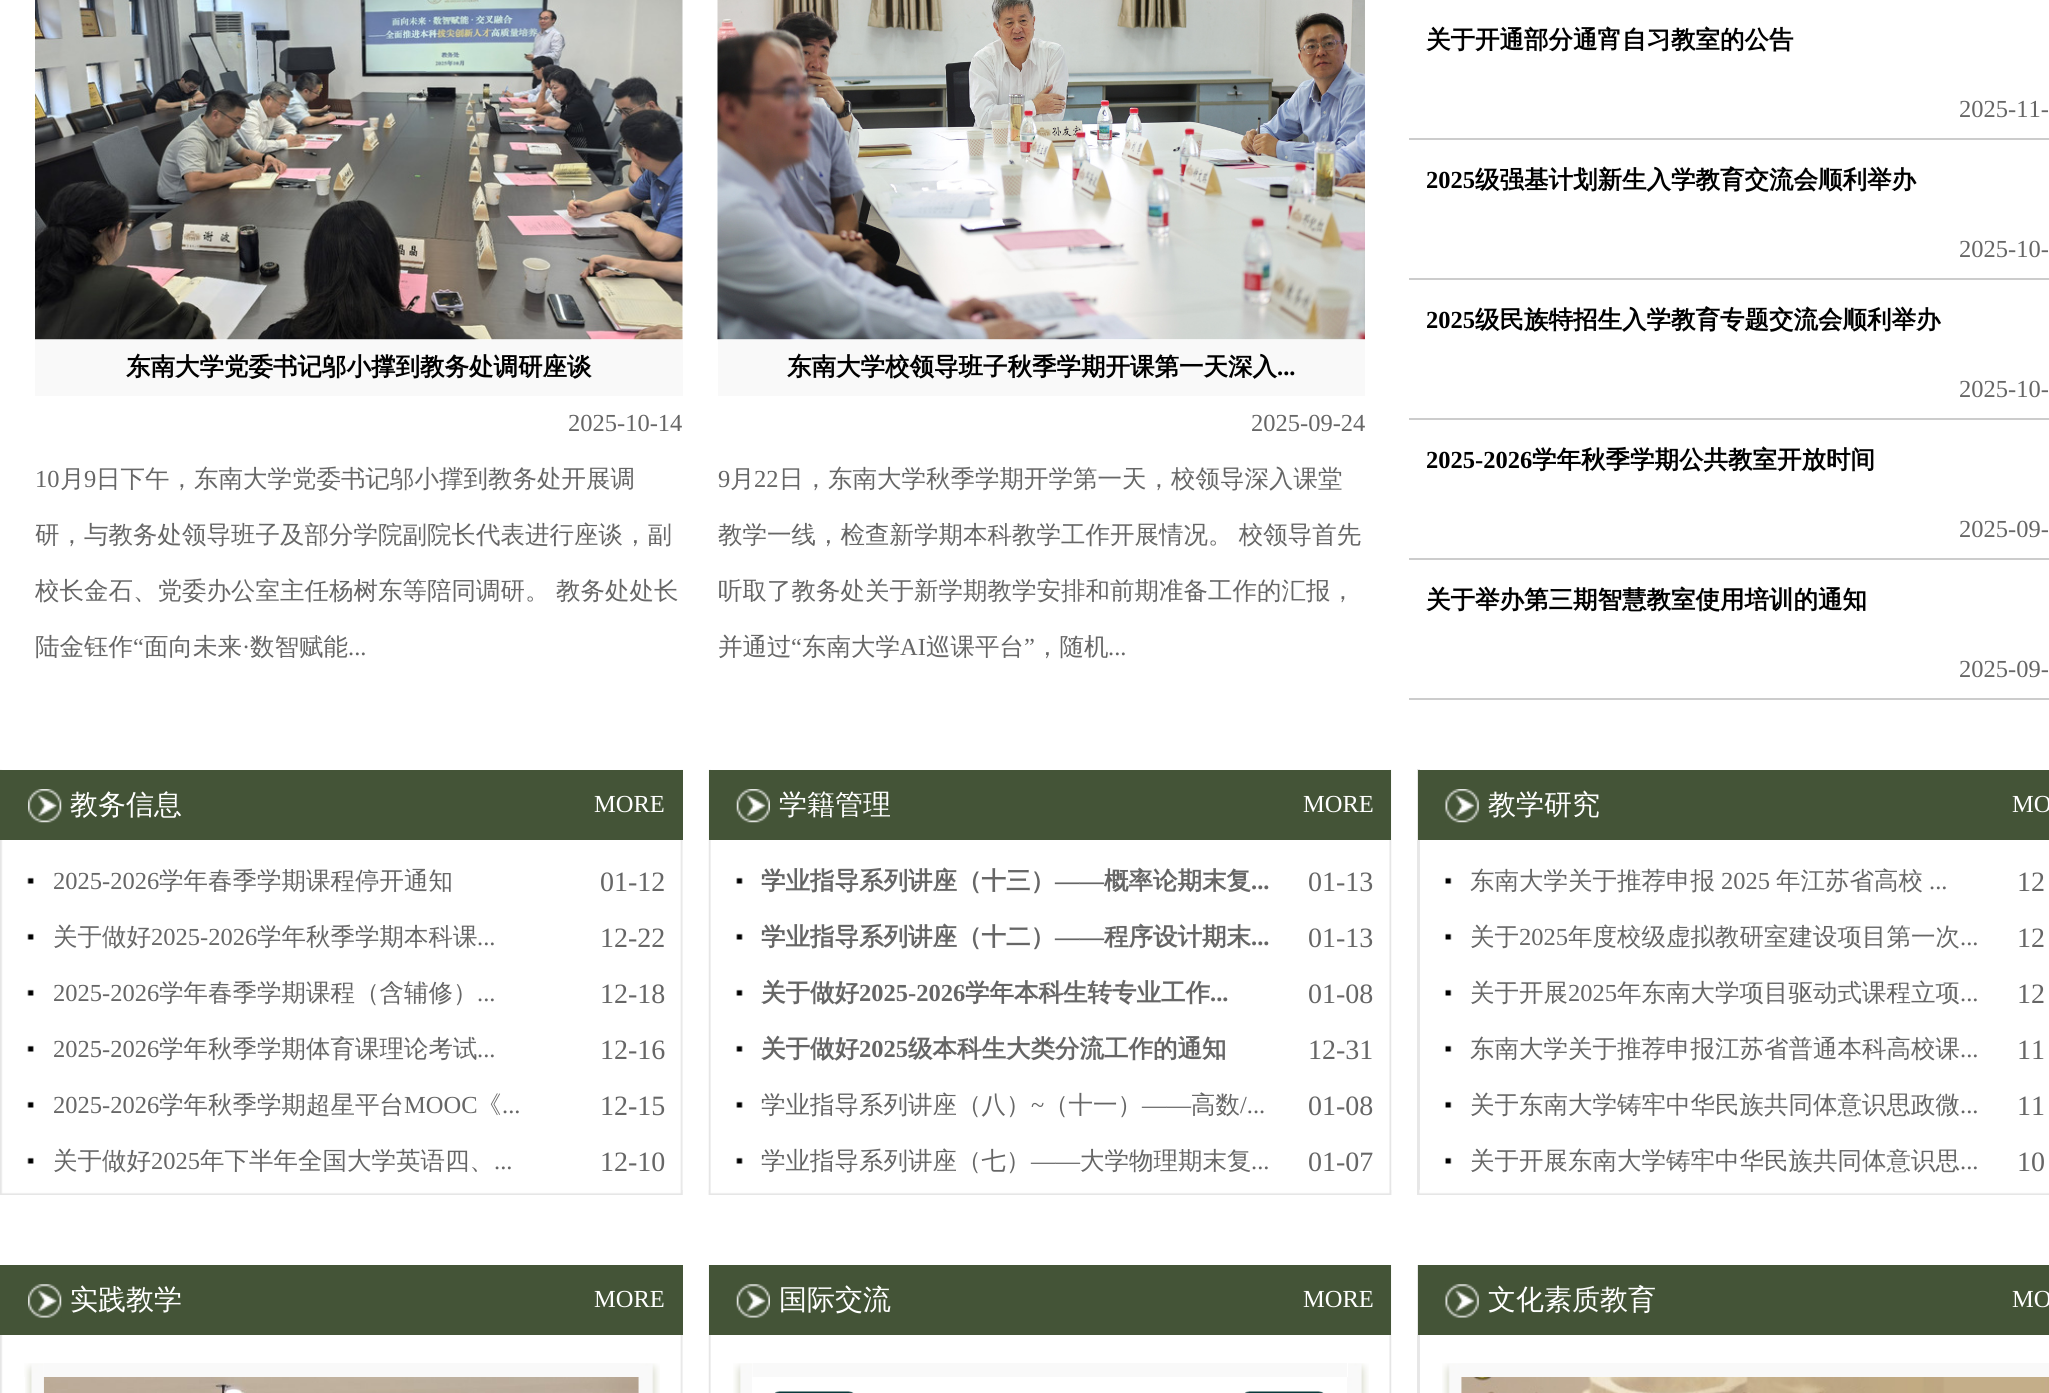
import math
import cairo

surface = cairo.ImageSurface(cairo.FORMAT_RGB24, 2049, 1393)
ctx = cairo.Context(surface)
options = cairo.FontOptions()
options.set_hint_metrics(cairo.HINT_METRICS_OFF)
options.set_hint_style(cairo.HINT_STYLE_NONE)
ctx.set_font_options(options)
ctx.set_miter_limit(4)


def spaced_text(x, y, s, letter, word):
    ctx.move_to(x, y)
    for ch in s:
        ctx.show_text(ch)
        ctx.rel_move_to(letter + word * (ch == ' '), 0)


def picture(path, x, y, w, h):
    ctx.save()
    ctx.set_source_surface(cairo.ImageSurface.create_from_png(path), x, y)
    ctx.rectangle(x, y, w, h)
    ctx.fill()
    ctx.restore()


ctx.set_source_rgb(1, 1, 1)
ctx.paint()
picture("img1.png", 35, 0, 648, 340)
ctx.set_source_rgb(0.976, 0.976, 0.976)
ctx.rectangle(35, 340, 648, 56)
ctx.fill()
ctx.select_font_face("WenQuanYi Zen Hei", cairo.FONT_SLANT_NORMAL, cairo.FONT_WEIGHT_BOLD)
ctx.set_font_size(24.5)
ctx.set_source_rgb(0, 0, 0)
ctx.move_to(126, 375)
ctx.show_text("东南大学党委书记邬小撑到教务处调研座谈")
ctx.select_font_face("Liberation Serif")
ctx.set_source_rgb(0.4, 0.4, 0.4)
ctx.move_to(568, 431)
ctx.show_text("2025-10-14")
ctx.move_to(35, 487)
ctx.show_text("10")
ctx.select_font_face("WenQuanYi Zen Hei Medium")
ctx.move_to(60, 487)
ctx.show_text("月")
ctx.select_font_face("Liberation Serif")
ctx.move_to(84, 487)
ctx.show_text("9")
ctx.select_font_face("WenQuanYi Zen Hei Medium")
ctx.move_to(96, 487)
ctx.show_text("日下午，东南大学党委书记邬小撑到教务处开展调")
ctx.move_to(35, 543)
ctx.show_text("研，与教务处领导班子及部分学院副院长代表进行座谈，副")
ctx.move_to(35, 599)
ctx.show_text("校长金石、党委办公室主任杨树东等陪同调研。")
ctx.move_to(556, 599)
ctx.show_text("教务处处长")
ctx.move_to(35, 655)
ctx.show_text("陆金钰作")
ctx.select_font_face("Liberation Serif")
ctx.move_to(133, 655)
ctx.show_text("“")
ctx.select_font_face("WenQuanYi Zen Hei Medium")
ctx.move_to(144, 655)
ctx.show_text("面向未来")
ctx.move_to(250, 655)
ctx.show_text("数智赋能")
ctx.select_font_face("Liberation Serif")
ctx.move_to(242, 655)
ctx.show_text("·")
ctx.move_to(348, 655)
ctx.show_text("...")
picture("img2.png", 717, 0, 648, 340)
ctx.set_source_rgb(0.976, 0.976, 0.976)
ctx.rectangle(718, 340, 647, 56)
ctx.fill()
ctx.select_font_face("WenQuanYi Zen Hei", cairo.FONT_SLANT_NORMAL, cairo.FONT_WEIGHT_BOLD)
ctx.set_source_rgb(0, 0, 0)
ctx.move_to(787, 375)
ctx.show_text("东南大学校领导班子秋季学期开课第一天深入")
ctx.select_font_face("Liberation Serif", cairo.FONT_SLANT_NORMAL, cairo.FONT_WEIGHT_BOLD)
ctx.move_to(1277, 375)
ctx.show_text("...")
ctx.select_font_face("Liberation Serif")
ctx.set_source_rgb(0.4, 0.4, 0.4)
ctx.move_to(1251, 431)
ctx.show_text("2025-09-24")
ctx.move_to(718, 487)
ctx.show_text("9")
ctx.select_font_face("WenQuanYi Zen Hei Medium")
ctx.move_to(730, 487)
ctx.show_text("月")
ctx.select_font_face("Liberation Serif")
ctx.move_to(754, 487)
ctx.show_text("22")
ctx.select_font_face("WenQuanYi Zen Hei Medium")
ctx.move_to(779, 487)
ctx.show_text("日，东南大学秋季学期开学第一天，校领导深入课堂")
spaced_text(718, 543, "教学一线，检查新学期本科教学工作开展情况。 校领导首先", 0, -1)
ctx.move_to(718, 599)
ctx.show_text("听取了教务处关于新学期教学安排和前期准备工作的汇报，")
ctx.move_to(718, 655)
ctx.show_text("并通过")
ctx.select_font_face("Liberation Serif")
ctx.move_to(791, 655)
ctx.show_text("“")
ctx.select_font_face("WenQuanYi Zen Hei Medium")
ctx.move_to(802, 655)
ctx.show_text("东南大学")
ctx.select_font_face("Liberation Serif")
ctx.move_to(900, 655)
ctx.show_text("AI")
ctx.select_font_face("WenQuanYi Zen Hei Medium")
ctx.move_to(926, 655)
ctx.show_text("巡课平台")
ctx.select_font_face("Liberation Serif")
ctx.move_to(1024, 655)
ctx.show_text("”")
ctx.select_font_face("WenQuanYi Zen Hei Medium")
ctx.move_to(1035, 655)
ctx.show_text("，随机")
ctx.select_font_face("Liberation Serif")
ctx.move_to(1108, 655)
ctx.show_text("...")
ctx.select_font_face("WenQuanYi Zen Hei", cairo.FONT_SLANT_NORMAL, cairo.FONT_WEIGHT_BOLD)
ctx.set_source_rgb(0, 0, 0)
ctx.move_to(1426, 48)
ctx.show_text("关于开通部分通宵自习教室的公告")
ctx.select_font_face("Liberation Serif")
ctx.set_source_rgb(0.4, 0.4, 0.4)
ctx.move_to(1959, 117)
ctx.show_text("2025-11-")
ctx.set_source_rgb(0.8, 0.8, 0.8)
ctx.rectangle(1409, 138, 640, 2)
ctx.fill()
ctx.select_font_face("Liberation Serif", cairo.FONT_SLANT_NORMAL, cairo.FONT_WEIGHT_BOLD)
ctx.set_source_rgb(0, 0, 0)
ctx.move_to(1426, 188)
ctx.show_text("2025")
ctx.select_font_face("WenQuanYi Zen Hei", cairo.FONT_SLANT_NORMAL, cairo.FONT_WEIGHT_BOLD)
ctx.move_to(1475, 188)
ctx.show_text("级强基计划新生入学教育交流会顺利举办")
ctx.select_font_face("Liberation Serif")
ctx.set_source_rgb(0.4, 0.4, 0.4)
ctx.move_to(1959, 257)
ctx.show_text("2025-10-")
ctx.set_source_rgb(0.8, 0.8, 0.8)
ctx.rectangle(1409, 278, 640, 2)
ctx.fill()
ctx.select_font_face("Liberation Serif", cairo.FONT_SLANT_NORMAL, cairo.FONT_WEIGHT_BOLD)
ctx.set_source_rgb(0, 0, 0)
ctx.move_to(1426, 328)
ctx.show_text("2025")
ctx.select_font_face("WenQuanYi Zen Hei", cairo.FONT_SLANT_NORMAL, cairo.FONT_WEIGHT_BOLD)
ctx.move_to(1475, 328)
ctx.show_text("级民族特招生入学教育专题交流会顺利举办")
ctx.select_font_face("Liberation Serif")
ctx.set_source_rgb(0.4, 0.4, 0.4)
ctx.move_to(1959, 397)
ctx.show_text("2025-10-")
ctx.set_source_rgb(0.8, 0.8, 0.8)
ctx.rectangle(1409, 418, 640, 2)
ctx.fill()
ctx.select_font_face("Liberation Serif", cairo.FONT_SLANT_NORMAL, cairo.FONT_WEIGHT_BOLD)
ctx.set_source_rgb(0, 0, 0)
ctx.move_to(1426, 468)
ctx.show_text("2025-2026")
ctx.select_font_face("WenQuanYi Zen Hei", cairo.FONT_SLANT_NORMAL, cairo.FONT_WEIGHT_BOLD)
ctx.move_to(1532, 468)
ctx.show_text("学年秋季学期公共教室开放时间")
ctx.select_font_face("Liberation Serif")
ctx.set_source_rgb(0.4, 0.4, 0.4)
ctx.move_to(1959, 537)
ctx.show_text("2025-09-")
ctx.set_source_rgb(0.8, 0.8, 0.8)
ctx.rectangle(1409, 558, 640, 2)
ctx.fill()
ctx.select_font_face("WenQuanYi Zen Hei", cairo.FONT_SLANT_NORMAL, cairo.FONT_WEIGHT_BOLD)
ctx.set_source_rgb(0, 0, 0)
ctx.move_to(1426, 608)
ctx.show_text("关于举办第三期智慧教室使用培训的通知")
ctx.select_font_face("Liberation Serif")
ctx.set_source_rgb(0.4, 0.4, 0.4)
ctx.move_to(1959, 677)
ctx.show_text("2025-09-")
ctx.set_source_rgb(0.8, 0.8, 0.8)
ctx.rectangle(1409, 698, 640, 2)
ctx.fill()
picture("img3.png", 0, 769, 683, 426)
ctx.set_source_rgb(0.267, 0.329, 0.216)
ctx.rectangle(0, 770, 683, 70)
ctx.fill()
picture("img4.png", 28, 789, 34, 34)
ctx.select_font_face("WenQuanYi Zen Hei Medium")
ctx.set_font_size(28)
ctx.set_source_rgb(1, 1, 1)
ctx.move_to(70, 814)
ctx.show_text("教务信息")
ctx.select_font_face("Liberation Serif")
ctx.set_font_size(24.5)
ctx.move_to(594, 812)
ctx.show_text("MORE")
picture("img5.png", 27, 877, 7, 7)
ctx.set_source_rgb(0.4, 0.4, 0.4)
ctx.move_to(53, 889)
ctx.show_text("2025-2026")
ctx.select_font_face("WenQuanYi Zen Hei Medium")
ctx.move_to(159, 889)
ctx.show_text("学年春季学期课程停开通知")
ctx.select_font_face("Liberation Serif")
ctx.set_font_size(28)
ctx.move_to(600, 891)
ctx.show_text("01-12")
picture("img5.png", 27, 933, 7, 7)
ctx.select_font_face("WenQuanYi Zen Hei Medium")
ctx.set_font_size(24.5)
ctx.move_to(53, 945)
ctx.show_text("关于做好")
ctx.select_font_face("Liberation Serif")
ctx.move_to(151, 945)
ctx.show_text("2025-2026")
ctx.select_font_face("WenQuanYi Zen Hei Medium")
ctx.move_to(257, 945)
ctx.show_text("学年秋季学期本科课")
ctx.select_font_face("Liberation Serif")
ctx.move_to(477, 945)
ctx.show_text("...")
ctx.set_font_size(28)
ctx.move_to(600, 947)
ctx.show_text("12-22")
picture("img5.png", 27, 989, 7, 7)
ctx.set_font_size(24.5)
ctx.move_to(53, 1001)
ctx.show_text("2025-2026")
ctx.select_font_face("WenQuanYi Zen Hei Medium")
ctx.move_to(159, 1001)
ctx.show_text("学年春季学期课程（含辅修）")
ctx.select_font_face("Liberation Serif")
ctx.move_to(477, 1001)
ctx.show_text("...")
ctx.set_font_size(28)
ctx.move_to(600, 1003)
ctx.show_text("12-18")
picture("img5.png", 27, 1045, 7, 7)
ctx.set_font_size(24.5)
ctx.move_to(53, 1057)
ctx.show_text("2025-2026")
ctx.select_font_face("WenQuanYi Zen Hei Medium")
ctx.move_to(159, 1057)
ctx.show_text("学年秋季学期体育课理论考试")
ctx.select_font_face("Liberation Serif")
ctx.move_to(477, 1057)
ctx.show_text("...")
ctx.set_font_size(28)
ctx.move_to(600, 1059)
ctx.show_text("12-16")
picture("img5.png", 27, 1101, 7, 7)
ctx.set_font_size(24.5)
ctx.move_to(53, 1113)
ctx.show_text("2025-2026")
ctx.select_font_face("WenQuanYi Zen Hei Medium")
ctx.move_to(159, 1113)
ctx.show_text("学年秋季学期超星平台")
ctx.select_font_face("Liberation Serif")
ctx.move_to(404, 1113)
ctx.show_text("MOOC")
ctx.select_font_face("WenQuanYi Zen Hei Medium")
ctx.move_to(477, 1113)
ctx.show_text("《")
ctx.select_font_face("Liberation Serif")
ctx.move_to(502, 1113)
ctx.show_text("...")
ctx.set_font_size(28)
ctx.move_to(600, 1115)
ctx.show_text("12-15")
picture("img5.png", 27, 1157, 7, 7)
ctx.select_font_face("WenQuanYi Zen Hei Medium")
ctx.set_font_size(24.5)
ctx.move_to(53, 1169)
ctx.show_text("关于做好")
ctx.select_font_face("Liberation Serif")
ctx.move_to(151, 1169)
ctx.show_text("2025")
ctx.select_font_face("WenQuanYi Zen Hei Medium")
ctx.move_to(200, 1169)
ctx.show_text("年下半年全国大学英语四、")
ctx.select_font_face("Liberation Serif")
ctx.move_to(494, 1169)
ctx.show_text("...")
ctx.set_font_size(28)
ctx.move_to(600, 1171)
ctx.show_text("12-10")
picture("img6.png", 1, 1190, 682, 5)
picture("img7.png", 708, 769, 684, 426)
ctx.set_source_rgb(0.267, 0.329, 0.216)
ctx.rectangle(709, 770, 682, 70)
ctx.fill()
picture("img8.png", 736, 789, 34, 34)
ctx.select_font_face("WenQuanYi Zen Hei Medium")
ctx.set_source_rgb(1, 1, 1)
ctx.move_to(779, 814)
ctx.show_text("学籍管理")
ctx.select_font_face("Liberation Serif")
ctx.set_font_size(24.5)
ctx.move_to(1303, 812)
ctx.show_text("MORE")
picture("img9.png", 736, 877, 7, 7)
ctx.select_font_face("WenQuanYi Zen Hei", cairo.FONT_SLANT_NORMAL, cairo.FONT_WEIGHT_BOLD)
ctx.set_source_rgb(0.4, 0.4, 0.4)
ctx.move_to(761, 889)
ctx.show_text("学业指导系列讲座（十三）")
ctx.select_font_face("Liberation Serif", cairo.FONT_SLANT_NORMAL, cairo.FONT_WEIGHT_BOLD)
ctx.move_to(1055, 889)
ctx.show_text("——")
ctx.select_font_face("WenQuanYi Zen Hei", cairo.FONT_SLANT_NORMAL, cairo.FONT_WEIGHT_BOLD)
ctx.move_to(1104, 889)
ctx.show_text("概率论期末复")
ctx.select_font_face("Liberation Serif", cairo.FONT_SLANT_NORMAL, cairo.FONT_WEIGHT_BOLD)
ctx.move_to(1251, 889)
ctx.show_text("...")
ctx.select_font_face("Liberation Serif")
ctx.set_font_size(28)
ctx.move_to(1308, 891)
ctx.show_text("01-13")
picture("img9.png", 736, 933, 7, 7)
ctx.select_font_face("WenQuanYi Zen Hei", cairo.FONT_SLANT_NORMAL, cairo.FONT_WEIGHT_BOLD)
ctx.set_font_size(24.5)
ctx.move_to(761, 945)
ctx.show_text("学业指导系列讲座（十二）")
ctx.select_font_face("Liberation Serif", cairo.FONT_SLANT_NORMAL, cairo.FONT_WEIGHT_BOLD)
ctx.move_to(1055, 945)
ctx.show_text("——")
ctx.select_font_face("WenQuanYi Zen Hei", cairo.FONT_SLANT_NORMAL, cairo.FONT_WEIGHT_BOLD)
ctx.move_to(1104, 945)
ctx.show_text("程序设计期末")
ctx.select_font_face("Liberation Serif", cairo.FONT_SLANT_NORMAL, cairo.FONT_WEIGHT_BOLD)
ctx.move_to(1251, 945)
ctx.show_text("...")
ctx.select_font_face("Liberation Serif")
ctx.set_font_size(28)
ctx.move_to(1308, 947)
ctx.show_text("01-13")
picture("img9.png", 736, 989, 7, 7)
ctx.select_font_face("WenQuanYi Zen Hei", cairo.FONT_SLANT_NORMAL, cairo.FONT_WEIGHT_BOLD)
ctx.set_font_size(24.5)
ctx.move_to(761, 1001)
ctx.show_text("关于做好")
ctx.select_font_face("Liberation Serif", cairo.FONT_SLANT_NORMAL, cairo.FONT_WEIGHT_BOLD)
ctx.move_to(859, 1001)
ctx.show_text("2025-2026")
ctx.select_font_face("WenQuanYi Zen Hei", cairo.FONT_SLANT_NORMAL, cairo.FONT_WEIGHT_BOLD)
ctx.move_to(965, 1001)
ctx.show_text("学年本科生转专业工作")
ctx.select_font_face("Liberation Serif", cairo.FONT_SLANT_NORMAL, cairo.FONT_WEIGHT_BOLD)
ctx.move_to(1210, 1001)
ctx.show_text("...")
ctx.select_font_face("Liberation Serif")
ctx.set_font_size(28)
ctx.move_to(1308, 1003)
ctx.show_text("01-08")
picture("img9.png", 736, 1045, 7, 7)
ctx.select_font_face("WenQuanYi Zen Hei", cairo.FONT_SLANT_NORMAL, cairo.FONT_WEIGHT_BOLD)
ctx.set_font_size(24.5)
ctx.move_to(761, 1057)
ctx.show_text("关于做好")
ctx.select_font_face("Liberation Serif", cairo.FONT_SLANT_NORMAL, cairo.FONT_WEIGHT_BOLD)
ctx.move_to(859, 1057)
ctx.show_text("2025")
ctx.select_font_face("WenQuanYi Zen Hei", cairo.FONT_SLANT_NORMAL, cairo.FONT_WEIGHT_BOLD)
ctx.move_to(908, 1057)
ctx.show_text("级本科生大类分流工作的通知")
ctx.select_font_face("Liberation Serif")
ctx.set_font_size(28)
ctx.move_to(1308, 1059)
ctx.show_text("12-31")
picture("img9.png", 736, 1101, 7, 7)
ctx.select_font_face("WenQuanYi Zen Hei Medium")
ctx.set_font_size(24.5)
ctx.move_to(761, 1113)
ctx.show_text("学业指导系列讲座（八）")
ctx.select_font_face("Liberation Serif")
ctx.move_to(1031, 1113)
ctx.show_text("~")
ctx.select_font_face("WenQuanYi Zen Hei Medium")
ctx.move_to(1044, 1113)
ctx.show_text("（十一）")
ctx.select_font_face("Liberation Serif")
ctx.move_to(1142, 1113)
ctx.show_text("——")
ctx.select_font_face("WenQuanYi Zen Hei Medium")
ctx.move_to(1191, 1113)
ctx.show_text("高数")
ctx.select_font_face("Liberation Serif")
ctx.move_to(1240, 1113)
ctx.show_text("/...")
ctx.set_font_size(28)
ctx.move_to(1308, 1115)
ctx.show_text("01-08")
picture("img9.png", 736, 1157, 7, 7)
ctx.select_font_face("WenQuanYi Zen Hei Medium")
ctx.set_font_size(24.5)
ctx.move_to(761, 1169)
ctx.show_text("学业指导系列讲座（七）")
ctx.select_font_face("Liberation Serif")
ctx.move_to(1031, 1169)
ctx.show_text("——")
ctx.select_font_face("WenQuanYi Zen Hei Medium")
ctx.move_to(1080, 1169)
ctx.show_text("大学物理期末复")
ctx.select_font_face("Liberation Serif")
ctx.move_to(1251, 1169)
ctx.show_text("...")
ctx.set_font_size(28)
ctx.move_to(1308, 1171)
ctx.show_text("01-07")
picture("img10.png", 708, 1190, 684, 5)
ctx.set_source_rgb(0.906, 0.906, 0.906)
ctx.rectangle(1417, 769, 3, 426)
ctx.fill()
ctx.set_source_rgb(0.267, 0.329, 0.216)
ctx.rectangle(1418, 770, 631, 70)
ctx.fill()
picture("img11.png", 1445, 789, 34, 34)
ctx.select_font_face("WenQuanYi Zen Hei Medium")
ctx.set_source_rgb(1, 1, 1)
ctx.move_to(1488, 814)
ctx.show_text("教学研究")
ctx.select_font_face("Liberation Serif")
ctx.set_font_size(24.5)
ctx.move_to(2012, 812)
ctx.show_text("MO")
picture("img12.png", 1445, 877, 7, 7)
ctx.select_font_face("WenQuanYi Zen Hei Medium")
ctx.set_source_rgb(0.4, 0.4, 0.4)
ctx.move_to(1470, 889)
ctx.show_text("东南大学关于推荐申报")
ctx.select_font_face("Liberation Serif")
ctx.move_to(1721, 889)
ctx.show_text("2025")
ctx.select_font_face("WenQuanYi Zen Hei Medium")
ctx.move_to(1776, 889)
ctx.show_text("年江苏省高校")
ctx.select_font_face("Liberation Serif")
ctx.move_to(1929, 889)
ctx.show_text("...")
ctx.set_font_size(28)
ctx.move_to(2017, 891)
ctx.show_text("12")
picture("img12.png", 1445, 933, 7, 7)
ctx.select_font_face("WenQuanYi Zen Hei Medium")
ctx.set_font_size(24.5)
ctx.move_to(1470, 945)
ctx.show_text("关于")
ctx.select_font_face("Liberation Serif")
ctx.move_to(1519, 945)
ctx.show_text("2025")
ctx.select_font_face("WenQuanYi Zen Hei Medium")
ctx.move_to(1568, 945)
ctx.show_text("年度校级虚拟教研室建设项目第一次")
ctx.select_font_face("Liberation Serif")
ctx.move_to(1960, 945)
ctx.show_text("...")
ctx.set_font_size(28)
ctx.move_to(2017, 947)
ctx.show_text("12")
picture("img12.png", 1445, 989, 7, 7)
ctx.select_font_face("WenQuanYi Zen Hei Medium")
ctx.set_font_size(24.5)
ctx.move_to(1470, 1001)
ctx.show_text("关于开展")
ctx.select_font_face("Liberation Serif")
ctx.move_to(1568, 1001)
ctx.show_text("2025")
ctx.select_font_face("WenQuanYi Zen Hei Medium")
ctx.move_to(1617, 1001)
ctx.show_text("年东南大学项目驱动式课程立项")
ctx.select_font_face("Liberation Serif")
ctx.move_to(1960, 1001)
ctx.show_text("...")
ctx.set_font_size(28)
ctx.move_to(2017, 1003)
ctx.show_text("12")
picture("img12.png", 1445, 1045, 7, 7)
ctx.select_font_face("WenQuanYi Zen Hei Medium")
ctx.set_font_size(24.5)
ctx.move_to(1470, 1057)
ctx.show_text("东南大学关于推荐申报江苏省普通本科高校课")
ctx.select_font_face("Liberation Serif")
ctx.move_to(1960, 1057)
ctx.show_text("...")
ctx.set_font_size(28)
ctx.move_to(2017, 1059)
ctx.show_text("11")
picture("img12.png", 1445, 1101, 7, 7)
ctx.select_font_face("WenQuanYi Zen Hei Medium")
ctx.set_font_size(24.5)
ctx.move_to(1470, 1113)
ctx.show_text("关于东南大学铸牢中华民族共同体意识思政微")
ctx.select_font_face("Liberation Serif")
ctx.move_to(1960, 1113)
ctx.show_text("...")
ctx.set_font_size(28)
ctx.move_to(2017, 1115)
ctx.show_text("11")
picture("img12.png", 1445, 1157, 7, 7)
ctx.select_font_face("WenQuanYi Zen Hei Medium")
ctx.set_font_size(24.5)
ctx.move_to(1470, 1169)
ctx.show_text("关于开展东南大学铸牢中华民族共同体意识思")
ctx.select_font_face("Liberation Serif")
ctx.move_to(1960, 1169)
ctx.show_text("...")
ctx.set_font_size(28)
ctx.move_to(2017, 1171)
ctx.show_text("10")
picture("img13.png", 1419, 1189, 630, 6)
picture("img14.png", 0, 1335, 683, 58)
ctx.set_source_rgb(0.267, 0.329, 0.216)
ctx.rectangle(0, 1265, 683, 70)
ctx.fill()
picture("img15.png", 28, 1284, 34, 34)
ctx.select_font_face("WenQuanYi Zen Hei Medium")
ctx.set_source_rgb(1, 1, 1)
ctx.move_to(70, 1309)
ctx.show_text("实践教学")
ctx.select_font_face("Liberation Serif")
ctx.set_font_size(24.5)
ctx.move_to(594, 1307)
ctx.show_text("MORE")
picture("img16.png", 24, 1363, 20, 14)
ctx.set_source_rgb(0.976, 0.976, 0.976)
ctx.rectangle(44, 1363, 595, 14)
ctx.fill()
picture("img17.png", 639, 1363, 21, 14)
picture("img18.png", 25, 1377, 19, 16)
ctx.rectangle(638, 1377, 1, 16)
ctx.fill()
picture("img19.png", 43, 1377, 596, 16)
picture("img20.png", 639, 1377, 21, 16)
picture("img21.png", 708, 1265, 684, 128)
ctx.set_source_rgb(0.267, 0.329, 0.216)
ctx.rectangle(709, 1265, 682, 70)
ctx.fill()
picture("img22.png", 736, 1284, 34, 34)
ctx.select_font_face("WenQuanYi Zen Hei Medium")
ctx.set_font_size(28)
ctx.set_source_rgb(1, 1, 1)
ctx.move_to(779, 1309)
ctx.show_text("国际交流")
ctx.select_font_face("Liberation Serif")
ctx.set_font_size(24.5)
ctx.move_to(1303, 1307)
ctx.show_text("MORE")
picture("img23.png", 733, 1363, 20, 14)
ctx.set_source_rgb(0.976, 0.976, 0.976)
ctx.rectangle(753, 1363, 594, 14)
ctx.fill()
picture("img24.png", 1348, 1363, 21, 14)
picture("img25.png", 733, 1377, 19, 16)
ctx.rectangle(1347, 1377, 1, 16)
ctx.fill()
picture("img26.png", 753, 1377, 594, 16)
picture("img27.png", 1348, 1377, 21, 16)
ctx.set_source_rgb(0.906, 0.906, 0.906)
ctx.rectangle(1417, 1265, 3, 128)
ctx.fill()
ctx.set_source_rgb(0.267, 0.329, 0.216)
ctx.rectangle(1418, 1265, 631, 70)
ctx.fill()
picture("img28.png", 1445, 1284, 34, 34)
ctx.select_font_face("WenQuanYi Zen Hei Medium")
ctx.set_font_size(28)
ctx.set_source_rgb(1, 1, 1)
ctx.move_to(1488, 1309)
ctx.show_text("文化素质教育")
ctx.select_font_face("Liberation Serif")
ctx.set_font_size(24.5)
ctx.move_to(2012, 1307)
ctx.show_text("MO")
picture("img29.png", 1442, 1363, 19, 14)
ctx.set_source_rgb(0.976, 0.976, 0.976)
ctx.rectangle(1461, 1363, 588, 14)
ctx.fill()
picture("img30.png", 1442, 1377, 19, 16)
ctx.rectangle(1461, 1377, 1, 16)
ctx.fill()
picture("img31.png", 1461, 1377, 588, 16)
surface.write_to_png("page.png")
